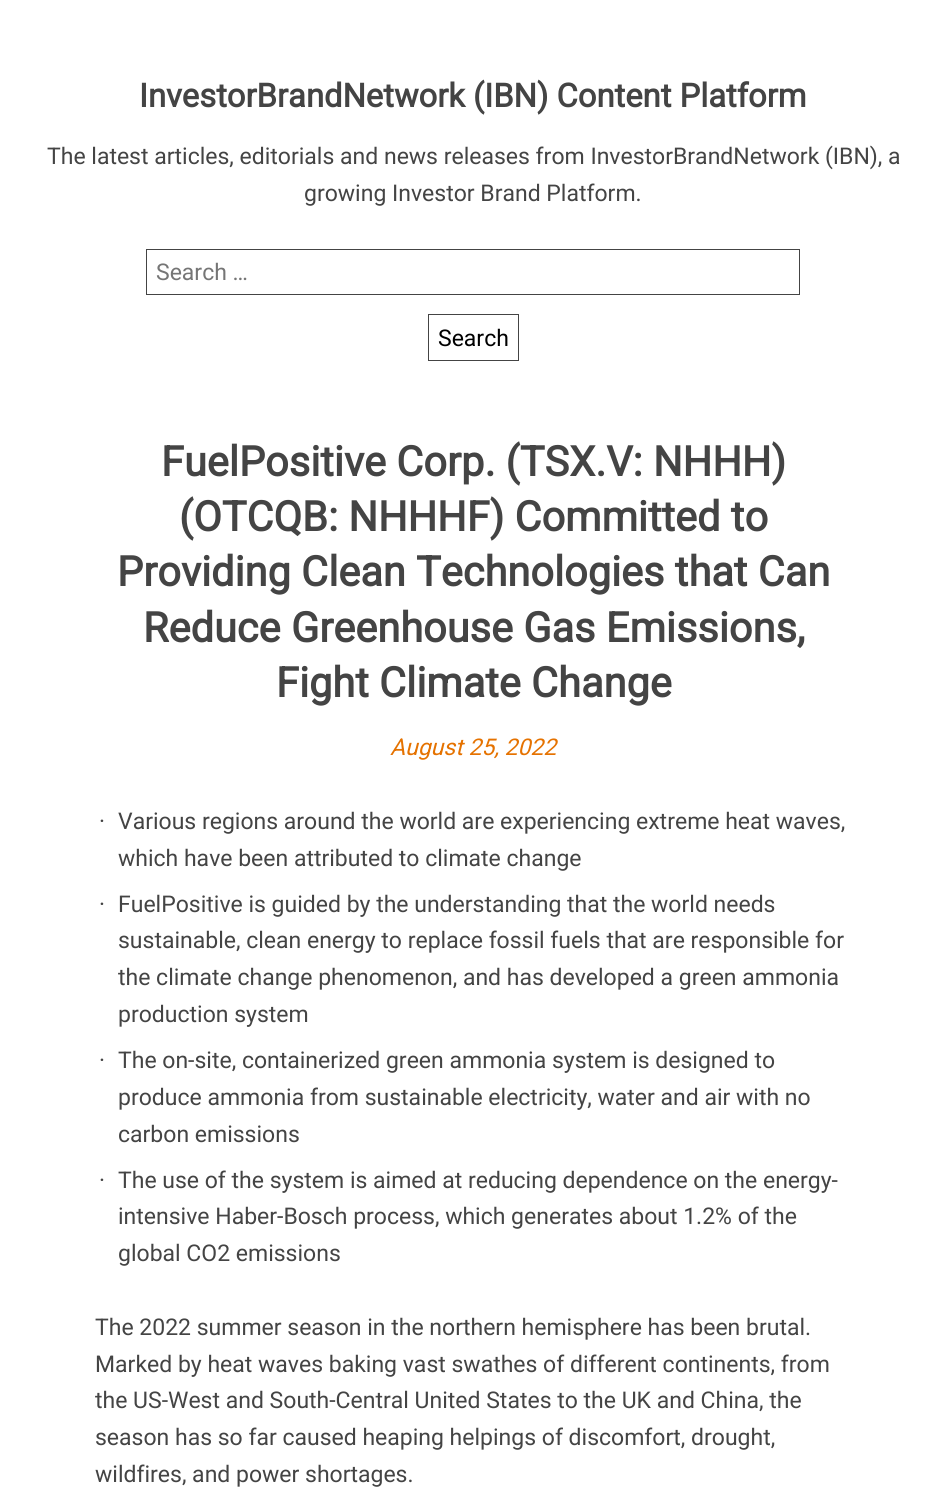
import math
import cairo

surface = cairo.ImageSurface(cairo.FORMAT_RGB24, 946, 1495)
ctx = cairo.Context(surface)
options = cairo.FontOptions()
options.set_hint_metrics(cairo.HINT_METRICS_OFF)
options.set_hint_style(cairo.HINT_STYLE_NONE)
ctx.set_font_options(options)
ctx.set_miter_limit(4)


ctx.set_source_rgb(1, 1, 1)
ctx.paint()
ctx.select_font_face("Roboto", cairo.FONT_SLANT_NORMAL, cairo.FONT_WEIGHT_BOLD)
ctx.set_font_size(32.75)
ctx.set_source_rgb(0.267, 0.267, 0.267)
ctx.move_to(139, 107)
ctx.show_text("InvestorBrandNetwork (IBN) Content Platform")
ctx.select_font_face("Roboto")
ctx.set_font_size(23)
ctx.move_to(47, 164)
ctx.show_text("The latest articles, editorials and news releases from InvestorBrandNetwork (IBN), a")
ctx.move_to(304, 201)
ctx.show_text("growing Investor Brand Platform.")
ctx.rectangle(146.5, 249.5, 653, 45)
ctx.set_line_width(1)
ctx.stroke()
ctx.set_source_rgb(0.459, 0.459, 0.459)
ctx.move_to(156, 280)
ctx.show_text("Search …")
ctx.rectangle(428.5, 314.5, 90, 46)
ctx.set_source_rgb(0.267, 0.267, 0.267)
ctx.stroke()
ctx.set_source_rgb(0, 0, 0)
ctx.move_to(438, 346)
ctx.show_text("Search")
ctx.select_font_face("Roboto", cairo.FONT_SLANT_NORMAL, cairo.FONT_WEIGHT_BOLD)
ctx.set_font_size(41.5)
ctx.set_source_rgb(0.267, 0.267, 0.267)
ctx.move_to(161, 476)
ctx.show_text("FuelPositive Corp. (TSX.V: NHHH)")
ctx.move_to(179, 531)
ctx.show_text("(OTCQB: NHHHF) Committed to")
ctx.move_to(117, 586)
ctx.show_text("Providing Clean Technologies that Can")
ctx.move_to(143, 642)
ctx.show_text("Reduce Greenhouse Gas Emissions,")
ctx.move_to(276, 697)
ctx.show_text("Fight Climate Change")
ctx.select_font_face("Roboto", cairo.FONT_SLANT_ITALIC)
ctx.set_font_size(23)
ctx.set_source_rgb(0.898, 0.447, 0)
ctx.move_to(390, 755)
ctx.show_text("August 25, 2022")
ctx.select_font_face("Roboto")
ctx.set_source_rgb(0.267, 0.267, 0.267)
ctx.move_to(99, 829)
ctx.show_text("·")
ctx.move_to(118, 829)
ctx.show_text("Various regions around the world are experiencing extreme heat waves,")
ctx.move_to(118, 866)
ctx.show_text("which have been attributed to climate change")
ctx.move_to(99, 912)
ctx.show_text("·")
ctx.move_to(118, 912)
ctx.show_text("FuelPositive is guided by the understanding that the world needs")
ctx.move_to(118, 948)
ctx.show_text("sustainable, clean energy to replace fossil fuels that are responsible for")
ctx.move_to(118, 985)
ctx.show_text("the climate change phenomenon, and has developed a green ammonia")
ctx.move_to(118, 1022)
ctx.show_text("production system")
ctx.move_to(99, 1068)
ctx.show_text("·")
ctx.move_to(118, 1068)
ctx.show_text("The on-site, containerized green ammonia system is designed to")
ctx.move_to(118, 1105)
ctx.show_text("produce ammonia from sustainable electricity, water and air with no")
ctx.move_to(118, 1142)
ctx.show_text("carbon emissions")
ctx.move_to(99, 1188)
ctx.show_text("·")
ctx.move_to(118, 1188)
ctx.show_text("The use of the system is aimed at reducing dependence on the energy-")
ctx.move_to(118, 1224)
ctx.show_text("intensive Haber-Bosch process, which generates about 1.2% of the")
ctx.move_to(118, 1261)
ctx.show_text("global CO2 emissions")
ctx.move_to(95, 1335)
ctx.show_text("The 2022 summer season in the northern hemisphere has been brutal.")
ctx.move_to(95, 1372)
ctx.show_text("Marked by heat waves baking vast swathes of different continents, from")
ctx.move_to(95, 1408)
ctx.show_text("the US-West and South-Central United States to the UK and China, the")
ctx.move_to(95, 1445)
ctx.show_text("season has so far caused heaping helpings of discomfort, drought,")
ctx.move_to(95, 1482)
ctx.show_text("wildfires, and power shortages.")
surface.write_to_png("page.png")
